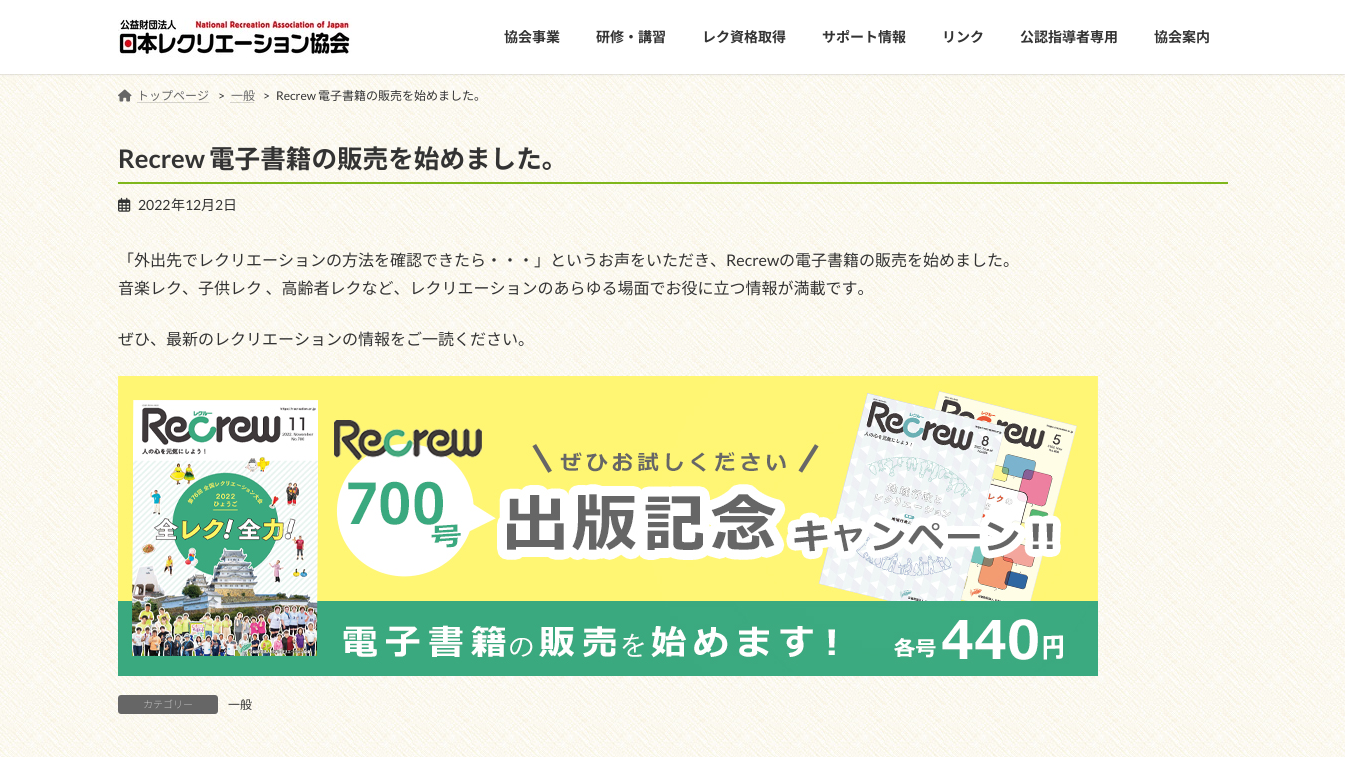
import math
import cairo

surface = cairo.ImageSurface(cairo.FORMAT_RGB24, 1345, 757)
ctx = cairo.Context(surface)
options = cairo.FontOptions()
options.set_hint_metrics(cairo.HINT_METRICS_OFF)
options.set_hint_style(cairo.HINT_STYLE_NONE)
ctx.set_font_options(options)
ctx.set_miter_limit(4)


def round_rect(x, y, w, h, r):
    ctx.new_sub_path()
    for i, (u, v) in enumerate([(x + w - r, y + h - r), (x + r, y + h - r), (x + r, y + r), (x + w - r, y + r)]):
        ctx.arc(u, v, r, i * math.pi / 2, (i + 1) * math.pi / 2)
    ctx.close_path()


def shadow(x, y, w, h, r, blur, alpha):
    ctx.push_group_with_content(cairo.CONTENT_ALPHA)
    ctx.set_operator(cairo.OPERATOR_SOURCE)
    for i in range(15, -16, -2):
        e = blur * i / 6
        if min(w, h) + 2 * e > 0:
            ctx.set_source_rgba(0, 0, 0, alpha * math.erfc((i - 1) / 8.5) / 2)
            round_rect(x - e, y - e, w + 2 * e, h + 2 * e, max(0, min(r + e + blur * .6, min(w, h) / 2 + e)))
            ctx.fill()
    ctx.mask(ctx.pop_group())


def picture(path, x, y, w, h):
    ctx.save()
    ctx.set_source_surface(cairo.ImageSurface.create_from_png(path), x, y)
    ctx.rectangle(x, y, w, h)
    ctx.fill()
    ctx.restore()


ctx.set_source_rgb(1, 1, 1)
ctx.paint()
picture("img1.png", 0, 74, 1345, 683)
ctx.set_source_rgba(0, 0, 0, 0.06)
ctx.rectangle(0, 74, 1345, 1)
ctx.fill()
ctx.set_source_rgb(0, 0, 0)
shadow(0, 1, 1345, 74, 0, 1.5, 0.05)
ctx.set_source_rgb(1, 1, 1)
ctx.rectangle(0, 0, 1345, 74)
ctx.fill()
picture("img2.png", 118, 18, 234, 40)
ctx.select_font_face("Noto Sans JP", cairo.FONT_SLANT_NORMAL, cairo.FONT_WEIGHT_BOLD)
ctx.set_font_size(14)
ctx.set_source_rgb(0.2, 0.2, 0.2)
ctx.move_to(504, 42)
ctx.show_text("協会事業")
ctx.move_to(596, 42)
ctx.show_text("研修・講習")
ctx.move_to(702, 42)
ctx.show_text("レク資格取得")
ctx.move_to(822, 42)
ctx.show_text("サポート情報")
ctx.move_to(942, 42)
ctx.show_text("リンク")
ctx.move_to(1020, 42)
ctx.show_text("公認指導者専用")
ctx.move_to(1154, 42)
ctx.show_text("協会案内")
picture("img3.png", 118, 89, 14, 13)
ctx.select_font_face("Noto Sans JP")
ctx.set_font_size(12)
ctx.set_source_rgb(0.4, 0.4, 0.4)
ctx.move_to(137, 100)
ctx.show_text("トップページ")
ctx.new_path()
ctx.move_to(137.5, 102.5)
ctx.line_to(209.5, 102.5)
ctx.set_source_rgba(0, 0, 0, 0.3)
ctx.set_line_width(1)
ctx.set_dash([1, 1])
ctx.stroke()
ctx.select_font_face("Lato")
ctx.set_source_rgb(0.2, 0.2, 0.2)
ctx.move_to(218, 100)
ctx.show_text(">")
ctx.select_font_face("Noto Sans JP")
ctx.set_source_rgb(0.4, 0.4, 0.4)
ctx.move_to(231, 100)
ctx.show_text("一般")
ctx.new_path()
ctx.move_to(230.5, 102.5)
ctx.line_to(254.5, 102.5)
ctx.set_source_rgba(0, 0, 0, 0.3)
ctx.stroke()
ctx.select_font_face("Lato")
ctx.set_source_rgb(0.2, 0.2, 0.2)
ctx.move_to(263, 100)
ctx.show_text(">")
ctx.move_to(276, 100)
ctx.show_text("Recrew")
ctx.select_font_face("Noto Sans JP")
ctx.move_to(318, 100)
ctx.show_text("電子書籍の販売を始めました。")
ctx.set_source_rgb(0.498, 0.718, 0.106)
ctx.rectangle(118, 182, 1110, 2)
ctx.fill()
ctx.select_font_face("Lato", cairo.FONT_SLANT_NORMAL, cairo.FONT_WEIGHT_BOLD)
ctx.set_font_size(25.6)
ctx.set_source_rgb(0.2, 0.2, 0.2)
ctx.move_to(118, 168)
ctx.show_text("Recrew")
ctx.select_font_face("Noto Sans JP", cairo.FONT_SLANT_NORMAL, cairo.FONT_WEIGHT_BOLD)
ctx.move_to(209, 168)
ctx.show_text("電子書籍の販売を始めました。")
picture("img4.png", 118, 197, 13, 15)
ctx.select_font_face("Lato")
ctx.set_font_size(14)
ctx.move_to(138, 210)
ctx.show_text("2022")
ctx.select_font_face("Noto Sans JP")
ctx.move_to(171, 210)
ctx.show_text("年")
ctx.select_font_face("Lato")
ctx.move_to(185, 210)
ctx.show_text("12")
ctx.select_font_face("Noto Sans JP")
ctx.move_to(201, 210)
ctx.show_text("月")
ctx.select_font_face("Lato")
ctx.move_to(215, 210)
ctx.show_text("2")
ctx.select_font_face("Noto Sans JP")
ctx.move_to(223, 210)
ctx.show_text("日")
ctx.set_font_size(16)
ctx.move_to(118, 266)
ctx.show_text("「外出先でレクリエーションの方法を確認できたら・・・」というお声をいただき、")
ctx.select_font_face("Lato")
ctx.move_to(726, 266)
ctx.show_text("Recrew")
ctx.select_font_face("Noto Sans JP")
ctx.move_to(779, 266)
ctx.show_text("の電子書籍の販売を始めました。")
ctx.move_to(118, 294)
ctx.show_text("音楽レク、子供レク 、高齢者レクなど、レクリエーションのあらゆる場面でお役に立つ情報が満載です。")
ctx.move_to(118, 345)
ctx.show_text("ぜひ、最新のレクリエーションの情報をご一読ください。")
picture("img5.png", 118, 376, 980, 300)
ctx.set_source_rgb(0.4, 0.4, 0.4)
round_rect(118, 695, 100, 19, 3)
ctx.fill()
ctx.select_font_face("Noto Sans JP Thin")
ctx.set_font_size(10)
ctx.set_source_rgb(1, 1, 1)
ctx.move_to(143, 708)
ctx.show_text("カテゴリー")
ctx.select_font_face("Noto Sans JP")
ctx.set_font_size(12)
ctx.set_source_rgb(0.2, 0.2, 0.2)
ctx.move_to(228, 709)
ctx.show_text("一般")
surface.write_to_png("page.png")
